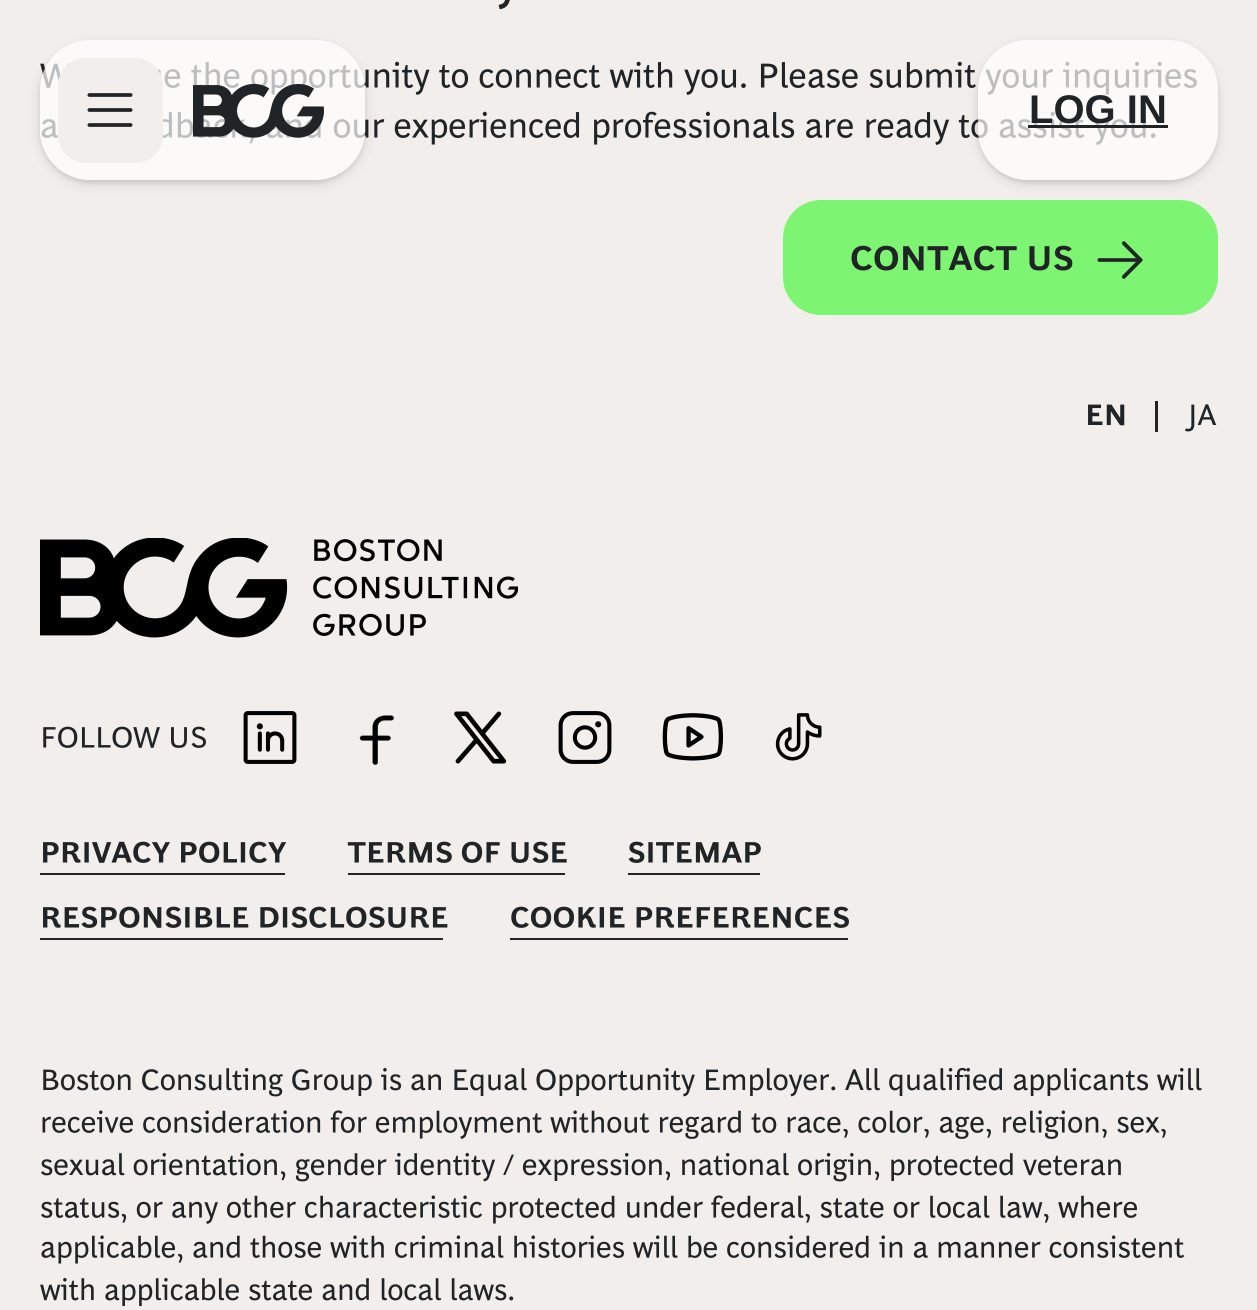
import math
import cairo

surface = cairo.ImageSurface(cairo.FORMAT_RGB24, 1257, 1310)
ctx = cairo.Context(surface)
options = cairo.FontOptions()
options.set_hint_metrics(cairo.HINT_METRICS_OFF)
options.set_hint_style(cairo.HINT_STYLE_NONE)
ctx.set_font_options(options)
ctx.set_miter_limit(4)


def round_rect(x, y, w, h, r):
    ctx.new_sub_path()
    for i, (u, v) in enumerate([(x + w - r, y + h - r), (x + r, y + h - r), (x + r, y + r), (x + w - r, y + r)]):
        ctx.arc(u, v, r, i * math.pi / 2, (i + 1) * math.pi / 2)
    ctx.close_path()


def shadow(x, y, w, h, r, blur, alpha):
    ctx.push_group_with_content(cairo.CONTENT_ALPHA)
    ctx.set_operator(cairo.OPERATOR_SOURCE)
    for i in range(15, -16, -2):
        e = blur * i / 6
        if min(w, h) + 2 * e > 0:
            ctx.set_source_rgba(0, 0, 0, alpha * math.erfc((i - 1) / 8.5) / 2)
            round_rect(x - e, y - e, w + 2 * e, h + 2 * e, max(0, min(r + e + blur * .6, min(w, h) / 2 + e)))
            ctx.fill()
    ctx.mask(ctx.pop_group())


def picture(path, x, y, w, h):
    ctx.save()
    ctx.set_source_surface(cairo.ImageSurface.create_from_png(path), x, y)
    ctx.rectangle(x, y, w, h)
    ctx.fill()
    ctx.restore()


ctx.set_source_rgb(0.945, 0.933, 0.918)
ctx.paint()
picture("img1.png", 498, 0, 12, 10)
picture("img2.png", 40, 61, 1157, 34)
picture("img3.png", 41, 111, 1115, 34)
ctx.set_source_rgb(0.494, 0.957, 0.451)
round_rect(783, 200, 435, 115, 38)
ctx.fill()
picture("img4.png", 851, 245, 222, 26)
picture("img5.png", 1097, 241, 46, 38)
picture("img6.png", 1088, 404, 37, 22)
ctx.set_source_rgb(0.129, 0.141, 0.153)
ctx.rectangle(1155, 401, 3, 31)
ctx.fill()
picture("img7.png", 1185, 404, 32, 28)
picture("img8.png", 40, 538, 478, 100)
picture("img9.png", 43, 726, 163, 22)
picture("img10.png", 243, 711, 54, 53)
picture("img11.png", 359, 715, 35, 50)
picture("img12.png", 454, 711, 53, 53)
picture("img13.png", 558, 711, 54, 53)
picture("img14.png", 662, 713, 62, 48)
picture("img15.png", 775, 713, 47, 48)
picture("img16.png", 43, 841, 244, 22)
ctx.rectangle(40, 873, 245, 2)
ctx.fill()
picture("img17.png", 347, 841, 220, 22)
ctx.rectangle(348, 873, 217, 2)
ctx.fill()
picture("img18.png", 628, 841, 133, 22)
ctx.rectangle(628, 873, 132, 2)
ctx.fill()
picture("img19.png", 43, 906, 405, 22)
ctx.rectangle(40, 938, 403, 2)
ctx.fill()
picture("img20.png", 511, 906, 338, 22)
ctx.rectangle(510, 938, 338, 2)
ctx.fill()
picture("img21.png", 43, 1067, 1159, 30)
picture("img22.png", 42, 1110, 1124, 29)
picture("img23.png", 41, 1152, 1080, 30)
picture("img24.png", 41, 1195, 1096, 29)
picture("img25.png", 41, 1235, 1144, 29)
picture("img26.png", 40, 1277, 474, 29)
ctx.save()
ctx.set_fill_rule(cairo.FILL_RULE_EVEN_ODD)
ctx.new_path()
ctx.move_to(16, 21)
ctx.line_to(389, 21)
ctx.line_to(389, 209)
ctx.line_to(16, 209)
ctx.close_path()
ctx.move_to(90, 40)
ctx.line_to(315, 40)
ctx.curve_to(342.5, 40, 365, 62.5, 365, 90)
ctx.line_to(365, 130)
ctx.curve_to(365, 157.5, 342.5, 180, 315, 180)
ctx.line_to(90, 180)
ctx.curve_to(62.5, 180, 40, 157.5, 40, 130)
ctx.line_to(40, 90)
ctx.curve_to(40, 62.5, 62.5, 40, 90, 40)
ctx.close_path()
ctx.clip()
ctx.set_source_rgb(0, 0, 0)
shadow(40, 45, 325, 140, 50, 7.5, 0.08)
ctx.restore()
ctx.save()
ctx.set_fill_rule(cairo.FILL_RULE_EVEN_ODD)
ctx.new_path()
ctx.move_to(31, 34)
ctx.line_to(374, 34)
ctx.line_to(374, 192)
ctx.line_to(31, 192)
ctx.close_path()
ctx.move_to(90, 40)
ctx.line_to(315, 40)
ctx.curve_to(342.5, 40, 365, 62.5, 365, 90)
ctx.line_to(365, 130)
ctx.curve_to(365, 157.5, 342.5, 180, 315, 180)
ctx.line_to(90, 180)
ctx.curve_to(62.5, 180, 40, 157.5, 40, 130)
ctx.line_to(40, 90)
ctx.curve_to(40, 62.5, 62.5, 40, 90, 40)
ctx.close_path()
ctx.clip()
ctx.set_source_rgb(0, 0, 0)
shadow(40, 43, 325, 140, 50, 2.5, 0.12)
ctx.restore()
ctx.set_source_rgba(1, 1, 1, 0.7)
round_rect(40, 40, 325, 140, 50)
ctx.fill()
ctx.set_source_rgb(0.945, 0.933, 0.918)
round_rect(58, 58, 105, 105, 28)
ctx.fill()
picture("img27.png", 87, 93, 46, 34)
picture("img28.png", 193, 83, 131, 55)
ctx.save()
ctx.set_fill_rule(cairo.FILL_RULE_EVEN_ODD)
ctx.new_path()
ctx.move_to(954, 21)
ctx.line_to(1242, 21)
ctx.line_to(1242, 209)
ctx.line_to(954, 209)
ctx.close_path()
ctx.move_to(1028, 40)
ctx.line_to(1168, 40)
ctx.curve_to(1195.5, 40, 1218, 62.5, 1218, 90)
ctx.line_to(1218, 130)
ctx.curve_to(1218, 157.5, 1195.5, 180, 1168, 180)
ctx.line_to(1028, 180)
ctx.curve_to(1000.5, 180, 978, 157.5, 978, 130)
ctx.line_to(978, 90)
ctx.curve_to(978, 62.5, 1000.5, 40, 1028, 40)
ctx.close_path()
ctx.clip()
ctx.set_source_rgb(0, 0, 0)
shadow(978, 45, 240, 140, 50, 7.5, 0.08)
ctx.restore()
ctx.save()
ctx.set_fill_rule(cairo.FILL_RULE_EVEN_ODD)
ctx.new_path()
ctx.move_to(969, 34)
ctx.line_to(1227, 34)
ctx.line_to(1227, 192)
ctx.line_to(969, 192)
ctx.close_path()
ctx.move_to(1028, 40)
ctx.line_to(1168, 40)
ctx.curve_to(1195.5, 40, 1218, 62.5, 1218, 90)
ctx.line_to(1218, 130)
ctx.curve_to(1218, 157.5, 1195.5, 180, 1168, 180)
ctx.line_to(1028, 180)
ctx.curve_to(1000.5, 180, 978, 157.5, 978, 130)
ctx.line_to(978, 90)
ctx.curve_to(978, 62.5, 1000.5, 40, 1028, 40)
ctx.close_path()
ctx.clip()
ctx.set_source_rgb(0, 0, 0)
shadow(978, 43, 240, 140, 50, 2.5, 0.12)
ctx.restore()
ctx.set_source_rgba(1, 1, 1, 0.7)
round_rect(978, 40, 240, 140, 50)
ctx.fill()
ctx.select_font_face("Liberation Sans", cairo.FONT_SLANT_NORMAL, cairo.FONT_WEIGHT_BOLD)
ctx.set_font_size(40)
ctx.set_source_rgb(0.129, 0.141, 0.153)
ctx.move_to(1029, 123)
ctx.show_text("LOG IN")
ctx.rectangle(1028, 125, 140, 3)
ctx.fill()
surface.write_to_png("page.png")
